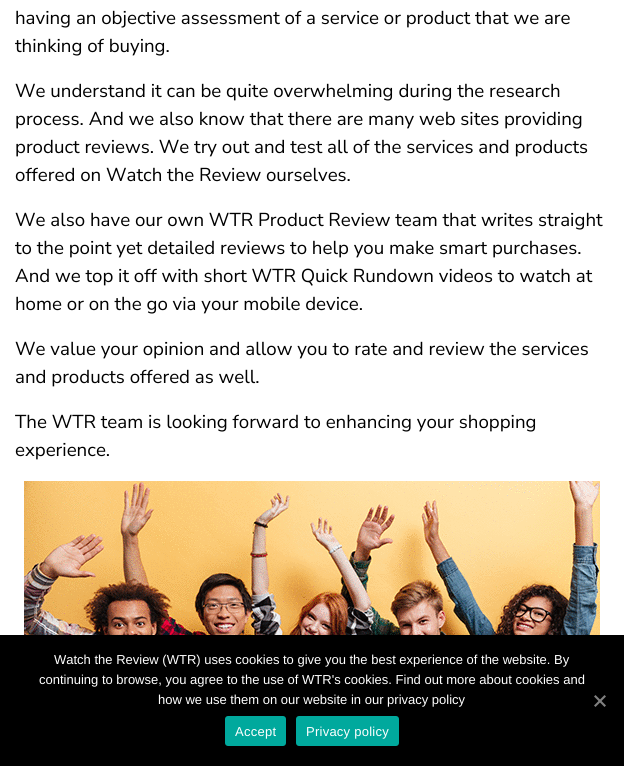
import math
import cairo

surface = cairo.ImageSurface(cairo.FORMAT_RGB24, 624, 766)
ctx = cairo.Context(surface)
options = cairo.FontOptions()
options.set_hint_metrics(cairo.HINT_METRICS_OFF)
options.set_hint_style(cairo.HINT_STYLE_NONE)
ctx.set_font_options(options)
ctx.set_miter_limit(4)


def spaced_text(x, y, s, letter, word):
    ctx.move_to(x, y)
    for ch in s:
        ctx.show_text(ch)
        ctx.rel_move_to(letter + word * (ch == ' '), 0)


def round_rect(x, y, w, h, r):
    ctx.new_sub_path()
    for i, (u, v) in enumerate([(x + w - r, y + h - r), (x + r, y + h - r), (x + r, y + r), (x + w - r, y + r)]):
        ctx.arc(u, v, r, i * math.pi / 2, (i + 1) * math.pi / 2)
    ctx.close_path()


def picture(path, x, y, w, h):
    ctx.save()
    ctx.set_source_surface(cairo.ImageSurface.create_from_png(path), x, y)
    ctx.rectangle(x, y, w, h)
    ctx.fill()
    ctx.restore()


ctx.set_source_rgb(1, 1, 1)
ctx.paint()
ctx.select_font_face("Nunito Sans")
ctx.set_font_size(18.7)
ctx.set_source_rgb(0, 0, 0)
ctx.move_to(15, 24)
ctx.show_text("having an objective assessment of a service or product that we are")
ctx.move_to(15, 52)
ctx.show_text("thinking of buying.")
ctx.move_to(15, 97)
ctx.show_text("We understand it can be quite overwhelming during the research")
ctx.move_to(15, 125)
ctx.show_text("process. And we also know that there are many web sites providing")
ctx.move_to(15, 153)
ctx.show_text("product reviews. We try out and test all of the services and products")
ctx.move_to(15, 181)
ctx.show_text("offered on Watch the Review ourselves.")
ctx.move_to(15, 226)
ctx.show_text("We also have our own WTR Product Review team that writes straight")
ctx.move_to(15, 254)
ctx.show_text("to the point yet detailed reviews to help you make smart purchases.")
ctx.move_to(15, 282)
ctx.show_text("And we top it off with short WTR Quick Rundown videos to watch at")
ctx.move_to(15, 310)
ctx.show_text("home or on the go via your mobile device.")
ctx.move_to(15, 355)
ctx.show_text("We value your opinion and allow you to rate and review the services")
ctx.move_to(15, 383)
ctx.show_text("and products offered as well.")
ctx.move_to(15, 428)
ctx.show_text("The WTR team is looking forward to enhancing your shopping")
ctx.move_to(15, 456)
ctx.show_text("experience.")
picture("img1.png", 24, 481, 576, 154)
ctx.rectangle(0, 635, 624, 131)
ctx.fill()
ctx.select_font_face("Liberation Sans")
ctx.set_font_size(13)
ctx.set_source_rgb(1, 1, 1)
ctx.move_to(54, 664)
ctx.show_text("Watch the Review (WTR) uses cookies to give you the best experience of the website. By")
ctx.move_to(39, 684)
ctx.show_text("continuing to browse, you agree to the use of WTR's cookies. Find out more about cookies and")
ctx.move_to(158, 704)
ctx.show_text("how we use them on our website in our privacy policy")
ctx.set_source_rgb(0.502, 0.502, 0.502)
ctx.new_path()
ctx.move_to(604.5, 695)
ctx.line_to(606, 696.5)
ctx.line_to(595.5, 707)
ctx.line_to(594, 705.5)
ctx.close_path()
ctx.fill()
ctx.new_path()
ctx.move_to(594, 696.5)
ctx.line_to(595.5, 695)
ctx.line_to(606, 705.5)
ctx.line_to(604.5, 707)
ctx.close_path()
ctx.fill()
ctx.set_source_rgb(0, 0.663, 0.616)
round_rect(225, 716, 61, 30, 3)
ctx.fill()
ctx.set_source_rgb(1, 1, 1)
spaced_text(235, 736, "Accept", 0.25, 0)
ctx.set_source_rgb(0, 0.663, 0.616)
round_rect(296, 716, 103, 30, 3)
ctx.fill()
ctx.set_source_rgb(1, 1, 1)
spaced_text(306, 736, "Privacy policy", 0.25, 0)
surface.write_to_png("page.png")
